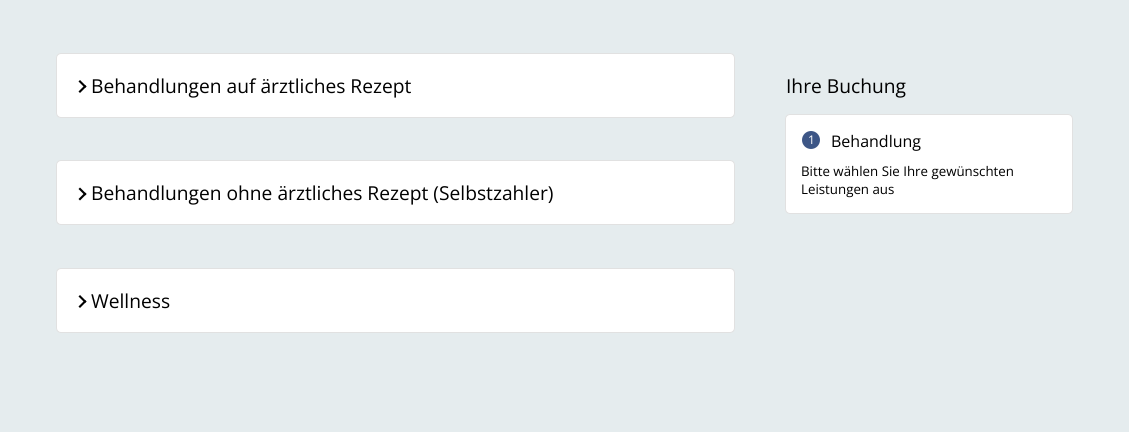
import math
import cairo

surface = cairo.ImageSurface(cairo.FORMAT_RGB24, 1129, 432)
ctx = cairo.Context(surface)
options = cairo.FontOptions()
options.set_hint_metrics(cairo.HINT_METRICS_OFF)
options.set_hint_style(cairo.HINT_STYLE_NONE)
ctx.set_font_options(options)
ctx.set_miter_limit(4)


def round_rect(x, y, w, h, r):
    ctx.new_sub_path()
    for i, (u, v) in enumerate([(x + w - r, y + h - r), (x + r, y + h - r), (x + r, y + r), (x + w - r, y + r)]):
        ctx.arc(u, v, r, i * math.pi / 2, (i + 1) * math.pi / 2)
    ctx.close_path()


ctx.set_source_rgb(0.898, 0.922, 0.933)
ctx.paint()
ctx.set_source_rgb(1, 1, 1)
round_rect(56.5, 53.5, 678, 64, 4.5)
ctx.fill_preserve()
ctx.set_source_rgb(0.882, 0.882, 0.882)
ctx.set_line_width(1)
ctx.stroke()
ctx.set_source_rgb(0, 0, 0)
ctx.new_path()
ctx.move_to(78.5, 81.5)
ctx.line_to(80, 80)
ctx.line_to(86.5, 86.5)
ctx.line_to(85, 88)
ctx.close_path()
ctx.fill()
ctx.new_path()
ctx.move_to(78.5, 91.5)
ctx.line_to(85, 85)
ctx.line_to(86.5, 86.5)
ctx.line_to(80, 93)
ctx.close_path()
ctx.fill()
ctx.select_font_face("Open Sans")
ctx.set_font_size(19.2)
ctx.move_to(91, 93)
ctx.show_text("Behandlungen auf ärztliches Rezept")
ctx.set_source_rgb(1, 1, 1)
round_rect(56.5, 160.5, 678, 64, 4.5)
ctx.fill_preserve()
ctx.set_source_rgb(0.882, 0.882, 0.882)
ctx.stroke()
ctx.set_source_rgb(0, 0, 0)
ctx.new_path()
ctx.move_to(78.5, 189)
ctx.line_to(80, 187.5)
ctx.line_to(86.5, 194)
ctx.line_to(85, 195.5)
ctx.close_path()
ctx.fill()
ctx.new_path()
ctx.move_to(78.5, 199)
ctx.line_to(85, 192.5)
ctx.line_to(86.5, 194)
ctx.line_to(80, 200.5)
ctx.close_path()
ctx.fill()
ctx.move_to(91, 200)
ctx.show_text("Behandlungen ohne ärztliches Rezept (Selbstzahler)")
ctx.set_source_rgb(1, 1, 1)
round_rect(56.5, 268.5, 678, 64, 4.5)
ctx.fill_preserve()
ctx.set_source_rgb(0.882, 0.882, 0.882)
ctx.stroke()
ctx.set_source_rgb(0, 0, 0)
ctx.new_path()
ctx.move_to(78.5, 296.5)
ctx.line_to(80, 295)
ctx.line_to(86.5, 301.5)
ctx.line_to(85, 303)
ctx.close_path()
ctx.fill()
ctx.new_path()
ctx.move_to(78.5, 306.5)
ctx.line_to(85, 300)
ctx.line_to(86.5, 301.5)
ctx.line_to(80, 308)
ctx.close_path()
ctx.fill()
ctx.move_to(91, 308)
ctx.show_text("Wellness")
ctx.move_to(786, 93)
ctx.show_text("Ihre Buchung")
ctx.set_source_rgb(1, 1, 1)
round_rect(785.5, 114.5, 287, 99, 4.5)
ctx.fill_preserve()
ctx.set_source_rgb(0.882, 0.882, 0.882)
ctx.stroke()
ctx.set_source_rgb(0.239, 0.337, 0.525)
ctx.arc(811, 140, 9, 0, 2 * math.pi)
ctx.fill()
ctx.set_font_size(12)
ctx.set_source_rgb(1, 1, 1)
ctx.move_to(808, 144)
ctx.show_text("1")
ctx.set_font_size(16)
ctx.set_source_rgb(0, 0, 0)
ctx.move_to(831, 147)
ctx.show_text("Behandlung")
ctx.set_font_size(13.3)
ctx.move_to(801, 176)
ctx.show_text("Bitte wählen Sie Ihre gewünschten")
ctx.move_to(801, 194)
ctx.show_text("Leistungen aus")
surface.write_to_png("page.png")
